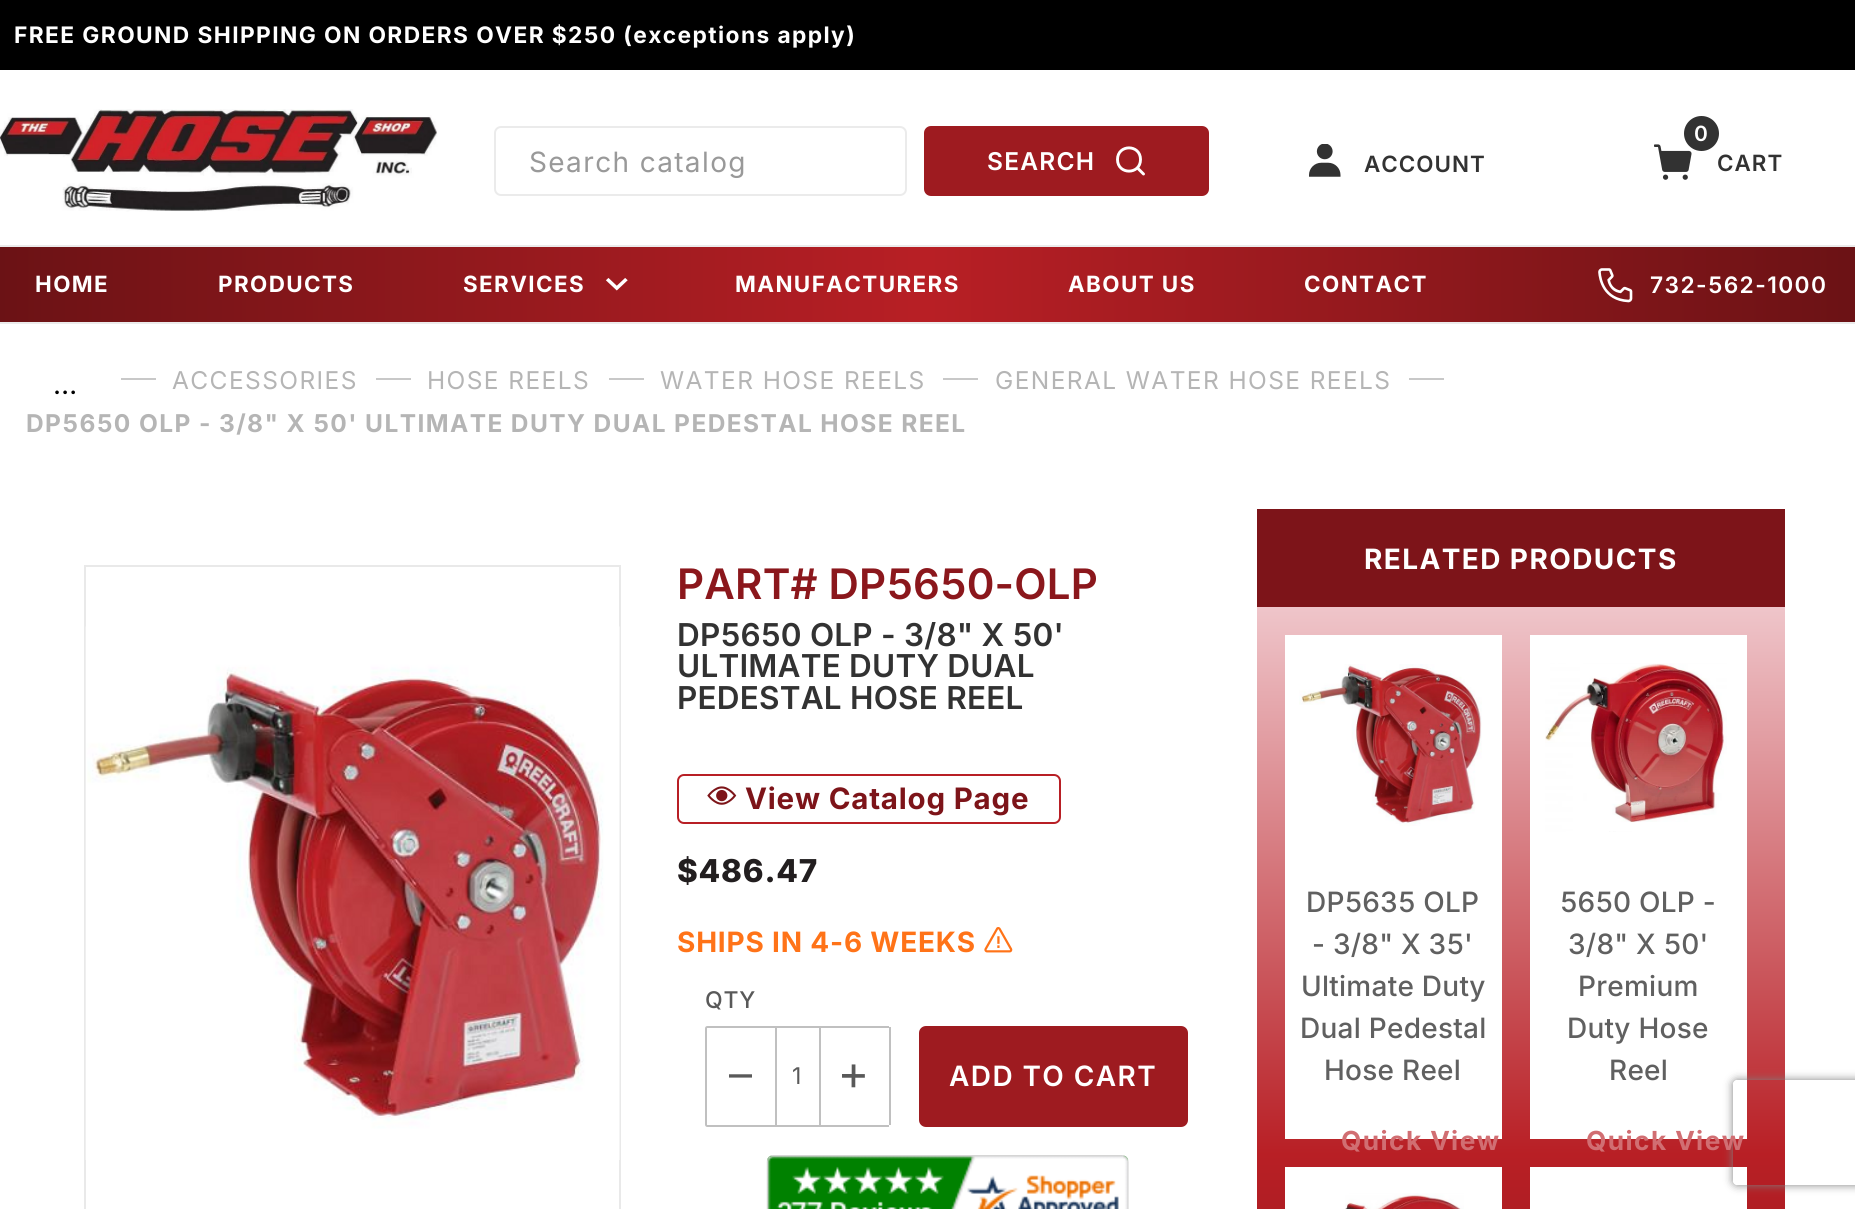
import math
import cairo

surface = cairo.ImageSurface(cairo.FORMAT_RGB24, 1855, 1209)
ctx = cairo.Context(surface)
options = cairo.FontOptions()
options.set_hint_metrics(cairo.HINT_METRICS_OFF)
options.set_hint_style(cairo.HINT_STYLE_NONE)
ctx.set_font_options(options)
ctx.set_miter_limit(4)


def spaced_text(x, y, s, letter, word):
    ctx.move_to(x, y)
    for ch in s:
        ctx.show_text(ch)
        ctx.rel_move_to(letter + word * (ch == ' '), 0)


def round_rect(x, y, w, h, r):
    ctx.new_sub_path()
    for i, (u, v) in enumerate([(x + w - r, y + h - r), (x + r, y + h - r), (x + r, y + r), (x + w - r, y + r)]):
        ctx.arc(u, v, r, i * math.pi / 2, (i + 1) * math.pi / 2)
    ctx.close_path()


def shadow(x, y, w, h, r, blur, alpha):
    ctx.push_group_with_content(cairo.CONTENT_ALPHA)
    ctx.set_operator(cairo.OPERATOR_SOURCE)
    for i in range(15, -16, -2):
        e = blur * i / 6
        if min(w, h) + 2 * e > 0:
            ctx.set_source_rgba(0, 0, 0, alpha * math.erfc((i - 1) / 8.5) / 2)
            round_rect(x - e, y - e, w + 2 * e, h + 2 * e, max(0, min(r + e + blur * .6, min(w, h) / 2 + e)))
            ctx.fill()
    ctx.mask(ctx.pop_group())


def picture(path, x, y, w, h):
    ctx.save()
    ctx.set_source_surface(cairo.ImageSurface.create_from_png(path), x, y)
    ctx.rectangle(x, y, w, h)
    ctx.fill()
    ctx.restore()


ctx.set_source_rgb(1, 1, 1)
ctx.paint()
ctx.set_source_rgb(0, 0, 0)
ctx.rectangle(0, 0, 1855, 70)
ctx.fill()
ctx.select_font_face("Inter", cairo.FONT_SLANT_NORMAL, cairo.FONT_WEIGHT_BOLD)
ctx.set_font_size(22.75)
ctx.set_source_rgb(1, 1, 1)
spaced_text(14, 43, "FREE GROUND SHIPPING ON ORDERS OVER $250 (exceptions apply)", 1.4, 0)
ctx.set_source_rgb(0.918, 0.918, 0.918)
ctx.rectangle(0, 245, 1855, 2)
ctx.fill()
picture("img1.png", 0, 109, 438, 103)
round_rect(495, 127, 411, 68, 6)
ctx.stroke()
ctx.select_font_face("Inter")
ctx.set_font_size(28)
ctx.set_source_rgb(0.6, 0.6, 0.6)
spaced_text(529, 172, "Search catalog", 1.4, 0)
ctx.set_source_rgb(0.62, 0.106, 0.125)
round_rect(924, 126, 285, 70, 7)
ctx.fill()
ctx.select_font_face("Inter SemiBold")
ctx.set_font_size(24.5)
ctx.set_source_rgb(1, 1, 1)
spaced_text(987, 170, "SEARCH", 1.25, 0)
ctx.new_path()
ctx.move_to(1140.5, 159.5)
ctx.curve_to(1140.5, 175, 1117.5, 175, 1117.5, 159.5)
ctx.curve_to(1117.5, 144, 1140.5, 144, 1140.5, 159.5)
ctx.close_path()
ctx.move_to(1143.5, 174)
ctx.line_to(1137.5, 168)
ctx.set_line_width(2.9)
ctx.set_line_cap(cairo.LINE_CAP_ROUND)
ctx.set_line_join(cairo.LINE_JOIN_ROUND)
ctx.stroke()
picture("img2.png", 1309, 144, 32, 33)
ctx.set_font_size(22.4)
ctx.set_source_rgb(0.196, 0.196, 0.196)
spaced_text(1364, 172, "ACCOUNT", 1, 0)
picture("img3.png", 1654, 144, 38, 36)
ctx.arc(1701.5, 133.5, 17.5, 0, 2 * math.pi)
ctx.fill()
ctx.set_font_size(21)
ctx.set_source_rgb(1, 1, 1)
spaced_text(1694, 141, "0", 1, 0)
ctx.set_font_size(22.4)
ctx.set_source_rgb(0.196, 0.196, 0.196)
spaced_text(1717, 171, "CART", 1, 0)
gradient = cairo.LinearGradient(0, 284, 1855, 284)
gradient.add_color_stop_rgba(0, 0.42, 0.071, 0.082, 1)
gradient.add_color_stop_rgba(0.5, 0.722, 0.122, 0.145, 1)
gradient.add_color_stop_rgba(1, 0.42, 0.071, 0.082, 1)
ctx.set_source(gradient)
ctx.rectangle(0, 247, 1855, 75)
ctx.fill()
ctx.set_source_rgb(0.918, 0.918, 0.918)
ctx.rectangle(0, 322, 1855, 2)
ctx.fill()
ctx.select_font_face("Inter", cairo.FONT_SLANT_NORMAL, cairo.FONT_WEIGHT_BOLD)
ctx.set_source_rgb(1, 1, 1)
spaced_text(35, 292, "HOME", 1.4, 0)
spaced_text(218, 292, "PRODUCTS", 1.4, 0)
spaced_text(463, 292, "SERVICES", 1.4, 0)
ctx.select_font_face("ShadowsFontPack")
ctx.save()
ctx.translate(607, 273)
ctx.rotate(90 * math.pi / 180)
spaced_text(0, 0, "3", 1.4, 0)
ctx.restore()
ctx.select_font_face("Inter", cairo.FONT_SLANT_NORMAL, cairo.FONT_WEIGHT_BOLD)
spaced_text(735, 292, "MANUFACTURERS", 1.4, 0)
spaced_text(1068, 292, "ABOUT US", 1.4, 0)
spaced_text(1304, 292, "CONTACT", 1.4, 0)
picture("img4.png", 1598, 268, 35, 35)
ctx.select_font_face("Inter SemiBold")
ctx.set_font_size(22.75)
spaced_text(1650, 293, "732-562-1000", 1.4, 0)
ctx.select_font_face("Inter")
ctx.set_font_size(24.5)
ctx.set_source_rgb(0.71, 0.71, 0.71)
spaced_text(172, 389, "ACCESSORIES", 1.4, 0)
ctx.set_source_rgb(0.784, 0.784, 0.784)
ctx.rectangle(376, 378, 35, 2)
ctx.fill()
ctx.set_source_rgb(0.71, 0.71, 0.71)
spaced_text(427, 389, "HOSE REELS", 1.4, 0)
ctx.set_source_rgb(0.784, 0.784, 0.784)
ctx.rectangle(609, 378, 35, 2)
ctx.fill()
ctx.set_source_rgb(0.71, 0.71, 0.71)
spaced_text(660, 389, "WATER HOSE REELS", 1.4, 0)
ctx.set_source_rgb(0.784, 0.784, 0.784)
ctx.rectangle(943, 378, 35, 2)
ctx.fill()
ctx.set_source_rgb(0.71, 0.71, 0.71)
spaced_text(995, 389, "GENERAL WATER HOSE REELS", 1.4, 0)
ctx.set_source_rgb(0.784, 0.784, 0.784)
ctx.rectangle(1409, 378, 35, 2)
ctx.fill()
ctx.rectangle(121, 378, 35, 2)
ctx.fill()
ctx.set_font_size(28)
ctx.set_source_rgb(0, 0, 0)
spaced_text(53, 394, "…", 1.4, 0)
ctx.select_font_face("Inter", cairo.FONT_SLANT_NORMAL, cairo.FONT_WEIGHT_BOLD)
ctx.set_font_size(24.5)
ctx.set_source_rgb(0.71, 0.71, 0.71)
spaced_text(26, 432, "DP5650 OLP - 3/8\" X 50' ULTIMATE DUTY DUAL PEDESTAL HOSE REEL", 1.4, 0)
ctx.rectangle(85, 566, 535, 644)
ctx.set_source_rgb(0.914, 0.914, 0.914)
ctx.set_line_width(2)
ctx.set_line_cap(cairo.LINE_CAP_BUTT)
ctx.set_line_join(cairo.LINE_JOIN_MITER)
ctx.stroke()
picture("img5.png", 85, 626, 535, 534)
ctx.select_font_face("Inter SemiBold")
ctx.set_font_size(42)
ctx.set_source_rgb(0.545, 0.09, 0.11)
spaced_text(677, 599, "PART# DP5650-OLP", 0.2, 0)
ctx.set_font_size(31.5)
ctx.set_source_rgb(0.196, 0.196, 0.196)
spaced_text(677, 646, "DP5650 OLP - 3/8\" X 50'", 0.2, 0)
spaced_text(677, 677, "ULTIMATE DUTY DUAL", 0.2, 0)
spaced_text(677, 709, "PEDESTAL HOSE REEL", 0.2, 0)
round_rect(678, 775, 382, 48, 6)
ctx.set_source_rgb(0.722, 0.122, 0.145)
ctx.stroke()
picture("img6.png", 707, 786, 30, 19)
ctx.select_font_face("Inter", cairo.FONT_SLANT_NORMAL, cairo.FONT_WEIGHT_BOLD)
ctx.set_font_size(29.5)
ctx.set_source_rgb(0.49, 0.082, 0.098)
spaced_text(745, 809, "View Catalog Page", 0.8, 0)
ctx.select_font_face("Inter ExtraBold")
ctx.set_font_size(31.5)
ctx.set_source_rgb(0.133, 0.118, 0.122)
spaced_text(677, 882, "$486.47", 0.8, 0)
ctx.select_font_face("Inter", cairo.FONT_SLANT_NORMAL, cairo.FONT_WEIGHT_BOLD)
ctx.set_font_size(28)
ctx.set_source_rgb(1, 0.451, 0.094)
spaced_text(677, 952, "SHIPS IN 4-6 WEEKS", 0.8, 0)
ctx.select_font_face("ShadowsFontPack")
spaced_text(984, 952, "\"", 0.8, 0)
ctx.select_font_face("Inter Medium")
ctx.set_font_size(23)
ctx.set_source_rgb(0.349, 0.349, 0.349)
spaced_text(705, 1008, "QTY", 0.8, 0)
ctx.new_path()
ctx.move_to(707.5, 1027)
ctx.line_to(776, 1027)
ctx.line_to(776, 1126)
ctx.line_to(707.5, 1126)
ctx.curve_to(706.5, 1126, 706, 1125.5, 706, 1124.5)
ctx.line_to(706, 1028.5)
ctx.curve_to(706, 1027.5, 706.5, 1027, 707.5, 1027)
ctx.close_path()
ctx.set_source_rgb(0.753, 0.753, 0.753)
ctx.stroke()
ctx.select_font_face("ShadowsFontPack")
ctx.set_source_rgb(0.349, 0.349, 0.349)
spaced_text(729, 1086, "<", 1, 0)
ctx.set_source_rgb(0.753, 0.753, 0.753)
ctx.rectangle(777, 1026, 112, 2)
ctx.fill()
ctx.rectangle(819, 1026, 2, 101)
ctx.fill()
ctx.rectangle(777, 1125, 112, 2)
ctx.fill()
ctx.select_font_face("Inter")
ctx.set_source_rgb(0.349, 0.349, 0.349)
spaced_text(792, 1084, "1", 1, 0)
ctx.set_source_rgb(0.753, 0.753, 0.753)
ctx.rectangle(889, 1027, 2, 98)
ctx.fill()
ctx.select_font_face("ShadowsFontPack")
ctx.set_source_rgb(0.349, 0.349, 0.349)
spaced_text(842, 1086, "=", 1, 0)
ctx.set_source_rgb(0.62, 0.106, 0.125)
round_rect(919, 1026, 269, 101, 7)
ctx.fill()
ctx.select_font_face("Inter SemiBold")
ctx.set_font_size(28)
ctx.set_source_rgb(1, 1, 1)
spaced_text(949, 1086, "ADD TO CART", 1.4, 0)
picture("img7.png", 766, 1155, 363, 54)
ctx.set_source_rgb(0.49, 0.082, 0.098)
ctx.rectangle(1257, 509, 528, 98)
ctx.fill()
ctx.select_font_face("Inter", cairo.FONT_SLANT_NORMAL, cairo.FONT_WEIGHT_BOLD)
ctx.set_source_rgb(1, 1, 1)
spaced_text(1364, 569, "RELATED PRODUCTS", 1.4, 0)
gradient = cairo.LinearGradient(1521, 607, 1521, 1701)
gradient.add_color_stop_rgba(0, 0.937, 0.773, 0.792, 1)
gradient.add_color_stop_rgba(0.5, 0.722, 0.122, 0.145, 1)
gradient.add_color_stop_rgba(1, 0.42, 0.071, 0.082, 1)
ctx.set_source(gradient)
ctx.rectangle(1257, 607, 528, 602)
ctx.fill()
ctx.set_source_rgb(1, 1, 1)
ctx.rectangle(1285, 635, 217, 504)
ctx.fill()
picture("img8.png", 1299, 664, 183, 162)
ctx.select_font_face("Inter Medium")
ctx.set_source_rgb(0.376, 0.376, 0.376)
spaced_text(1306, 912, "DP5635 OLP", 0.25, 0)
spaced_text(1312, 954, "- 3/8\" X 35'", 0.25, 0)
spaced_text(1301, 996, "Ultimate Duty", 0.25, 0)
spaced_text(1300, 1038, "Dual Pedestal", 0.25, 0)
spaced_text(1324, 1080, "Hose Reel", 0.25, 0)
ctx.select_font_face("Inter", cairo.FONT_SLANT_NORMAL, cairo.FONT_WEIGHT_BOLD)
ctx.set_font_size(26.25)
ctx.set_source_rgb(0.82, 0.431, 0.447)
spaced_text(1341, 1150, "Quick View", 1.4, 0)
ctx.set_source_rgb(1, 1, 1)
ctx.rectangle(1530, 635, 217, 504)
ctx.fill()
picture("img9.png", 1545, 663, 182, 169)
ctx.select_font_face("Inter Medium")
ctx.set_font_size(28)
ctx.set_source_rgb(0.376, 0.376, 0.376)
spaced_text(1560, 912, "5650 OLP -", 0.25, 0)
spaced_text(1568, 954, "3/8\" X 50'", 0.25, 0)
spaced_text(1578, 996, "Premium", 0.25, 0)
spaced_text(1567, 1038, "Duty Hose", 0.25, 0)
spaced_text(1609, 1080, "Reel", 0.25, 0)
ctx.set_source_rgb(1, 1, 1)
ctx.rectangle(1530, 1167, 217, 42)
ctx.fill()
ctx.save()
ctx.set_fill_rule(cairo.FILL_RULE_EVEN_ODD)
ctx.new_path()
ctx.move_to(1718, 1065)
ctx.line_to(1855, 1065)
ctx.line_to(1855, 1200)
ctx.line_to(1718, 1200)
ctx.close_path()
ctx.move_to(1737, 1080)
ctx.line_to(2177, 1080)
ctx.curve_to(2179, 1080, 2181, 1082, 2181, 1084)
ctx.line_to(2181, 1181)
ctx.curve_to(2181, 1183, 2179, 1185, 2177, 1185)
ctx.line_to(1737, 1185)
ctx.curve_to(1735, 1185, 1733, 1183, 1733, 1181)
ctx.line_to(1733, 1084)
ctx.curve_to(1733, 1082, 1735, 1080, 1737, 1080)
ctx.close_path()
ctx.clip()
ctx.set_source_rgb(0.502, 0.502, 0.502)
shadow(1733, 1080, 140, 105, 4, 4.5, 1)
ctx.restore()
ctx.select_font_face("Inter", cairo.FONT_SLANT_NORMAL, cairo.FONT_WEIGHT_BOLD)
ctx.set_font_size(26.25)
ctx.set_source_rgb(0.82, 0.431, 0.447)
spaced_text(1586, 1150, "Quick View", 1.4, 0)
ctx.set_source_rgb(1, 1, 1)
ctx.rectangle(1285, 1167, 217, 42)
ctx.fill()
picture("img10.png", 1345, 1193, 119, 16)
surface.write_to_png("page.png")
